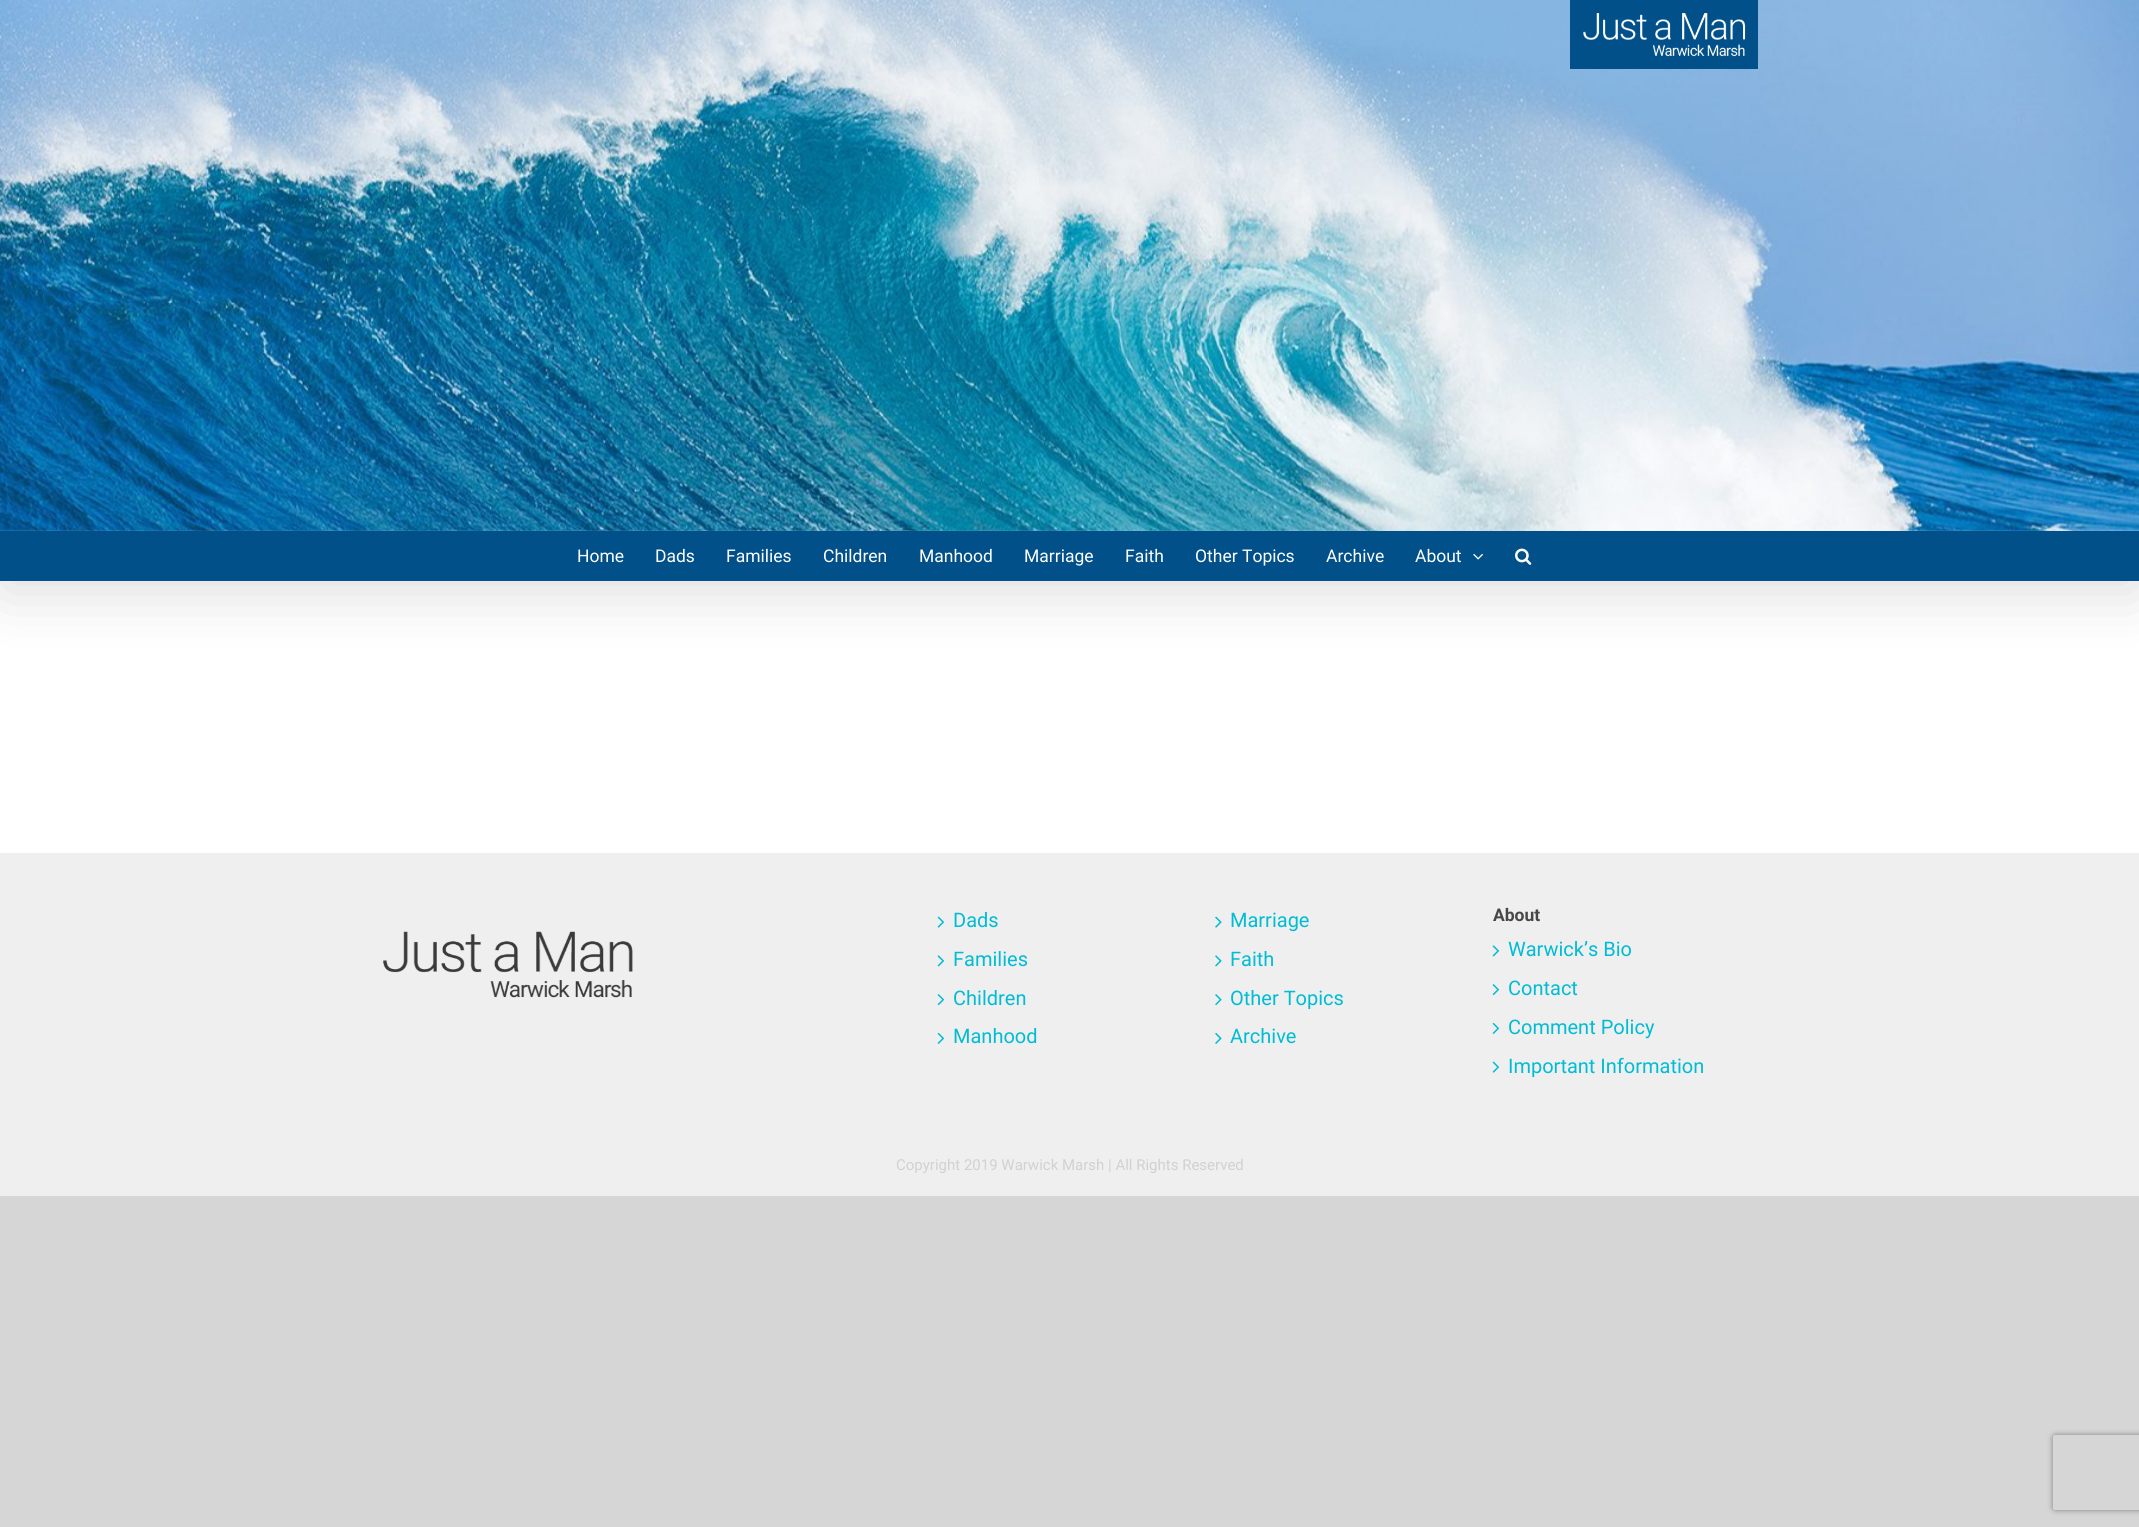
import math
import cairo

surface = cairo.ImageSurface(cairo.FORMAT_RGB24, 2139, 1527)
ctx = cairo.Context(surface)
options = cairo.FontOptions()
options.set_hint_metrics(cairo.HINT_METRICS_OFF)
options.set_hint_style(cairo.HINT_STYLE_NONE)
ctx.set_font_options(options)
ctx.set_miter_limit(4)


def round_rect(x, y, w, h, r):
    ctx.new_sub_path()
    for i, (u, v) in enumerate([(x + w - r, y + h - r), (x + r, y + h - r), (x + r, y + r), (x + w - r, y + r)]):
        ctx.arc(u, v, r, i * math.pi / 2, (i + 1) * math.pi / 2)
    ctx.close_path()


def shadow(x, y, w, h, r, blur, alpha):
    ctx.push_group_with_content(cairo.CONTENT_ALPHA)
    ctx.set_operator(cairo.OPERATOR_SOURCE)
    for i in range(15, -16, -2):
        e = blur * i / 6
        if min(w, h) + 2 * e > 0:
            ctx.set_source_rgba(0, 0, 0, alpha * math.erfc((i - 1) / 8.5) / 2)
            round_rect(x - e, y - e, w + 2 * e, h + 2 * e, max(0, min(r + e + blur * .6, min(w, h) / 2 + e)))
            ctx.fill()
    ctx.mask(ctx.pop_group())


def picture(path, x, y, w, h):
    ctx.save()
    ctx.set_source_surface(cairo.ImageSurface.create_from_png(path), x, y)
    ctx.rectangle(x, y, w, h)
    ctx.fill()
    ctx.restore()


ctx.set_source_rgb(0.843, 0.839, 0.839)
ctx.paint()
ctx.set_source_rgb(1, 1, 1)
ctx.rectangle(0, 530, 2139, 323)
ctx.fill()
ctx.set_source_rgb(0, 0, 0)
shadow(3, 15, 2135, 576, 0, 31, 0.14)
picture("img1.png", 0, 0, 2139, 531)
ctx.set_source_rgb(0.004, 0.314, 0.537)
ctx.rectangle(1570, 0, 188, 69)
ctx.fill()
picture("img2.png", 1583, 13, 163, 44)
ctx.rectangle(0, 531, 2139, 50)
ctx.fill()
ctx.select_font_face("Roboto")
ctx.set_font_size(17.5)
ctx.set_source_rgb(1, 1, 1)
ctx.move_to(577, 562)
ctx.show_text("Home")
ctx.move_to(655, 562)
ctx.show_text("Dads")
ctx.move_to(726, 562)
ctx.show_text("Families")
ctx.move_to(823, 562)
ctx.show_text("Children")
ctx.move_to(919, 562)
ctx.show_text("Manhood")
ctx.move_to(1024, 562)
ctx.show_text("Marriage")
ctx.move_to(1125, 562)
ctx.show_text("Faith")
ctx.move_to(1195, 562)
ctx.show_text("Other Topics")
ctx.move_to(1326, 562)
ctx.show_text("Archive")
ctx.move_to(1415, 562)
ctx.show_text("About")
picture("img3.png", 1473, 553, 10, 7)
picture("img4.png", 1515, 548, 17, 17)
ctx.set_source_rgb(0.937, 0.937, 0.937)
ctx.rectangle(0, 853, 2139, 343)
ctx.fill()
picture("img5.png", 383, 931, 250, 67)
picture("img6.png", 937, 916, 8, 12)
ctx.set_font_size(20)
ctx.set_source_rgb(0, 0.737, 0.831)
ctx.move_to(953, 927)
ctx.show_text("Dads")
picture("img7.png", 937, 955, 8, 12)
ctx.move_to(953, 966)
ctx.show_text("Families")
picture("img8.png", 937, 994, 8, 12)
ctx.move_to(953, 1005)
ctx.show_text("Children")
picture("img9.png", 937, 1032, 8, 12)
ctx.move_to(953, 1043)
ctx.show_text("Manhood")
picture("img10.png", 1215, 916, 7, 12)
ctx.move_to(1230, 927)
ctx.show_text("Marriage")
picture("img11.png", 1215, 955, 7, 12)
ctx.move_to(1230, 966)
ctx.show_text("Faith")
picture("img12.png", 1215, 994, 7, 12)
ctx.move_to(1230, 1005)
ctx.show_text("Other Topics")
picture("img13.png", 1215, 1032, 7, 12)
ctx.move_to(1230, 1043)
ctx.show_text("Archive")
ctx.select_font_face("Roboto", cairo.FONT_SLANT_NORMAL, cairo.FONT_WEIGHT_BOLD)
ctx.set_font_size(17.5)
ctx.set_source_rgb(0.278, 0.278, 0.278)
ctx.move_to(1493, 921)
ctx.show_text("About")
picture("img7.png", 1492, 945, 8, 12)
ctx.select_font_face("Roboto")
ctx.set_font_size(20)
ctx.set_source_rgb(0, 0.737, 0.831)
ctx.move_to(1508, 956)
ctx.show_text("Warwick’s Bio")
picture("img8.png", 1492, 984, 8, 12)
ctx.move_to(1508, 995)
ctx.show_text("Contact")
picture("img9.png", 1492, 1022, 8, 12)
ctx.move_to(1508, 1034)
ctx.show_text("Comment Policy")
picture("img6.png", 1492, 1061, 8, 12)
ctx.move_to(1508, 1073)
ctx.show_text("Important Information")
ctx.set_font_size(15)
ctx.set_source_rgb(0.82, 0.82, 0.82)
ctx.move_to(896, 1170)
ctx.show_text("Copyright 2019 Warwick Marsh | All Rights Reserved")
ctx.save()
ctx.set_fill_rule(cairo.FILL_RULE_EVEN_ODD)
ctx.new_path()
ctx.move_to(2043, 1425)
ctx.line_to(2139, 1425)
ctx.line_to(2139, 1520)
ctx.line_to(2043, 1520)
ctx.close_path()
ctx.move_to(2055.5, 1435)
ctx.line_to(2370.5, 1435)
ctx.curve_to(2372, 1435, 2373, 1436, 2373, 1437.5)
ctx.line_to(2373, 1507.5)
ctx.curve_to(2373, 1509, 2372, 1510, 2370.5, 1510)
ctx.line_to(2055.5, 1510)
ctx.curve_to(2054, 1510, 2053, 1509, 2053, 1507.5)
ctx.line_to(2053, 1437.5)
ctx.curve_to(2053, 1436, 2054, 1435, 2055.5, 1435)
ctx.close_path()
ctx.clip()
ctx.set_source_rgb(0.502, 0.502, 0.502)
shadow(2053, 1435, 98, 75, 2.5, 3, 1)
ctx.restore()
surface.write_to_png("page.png")
